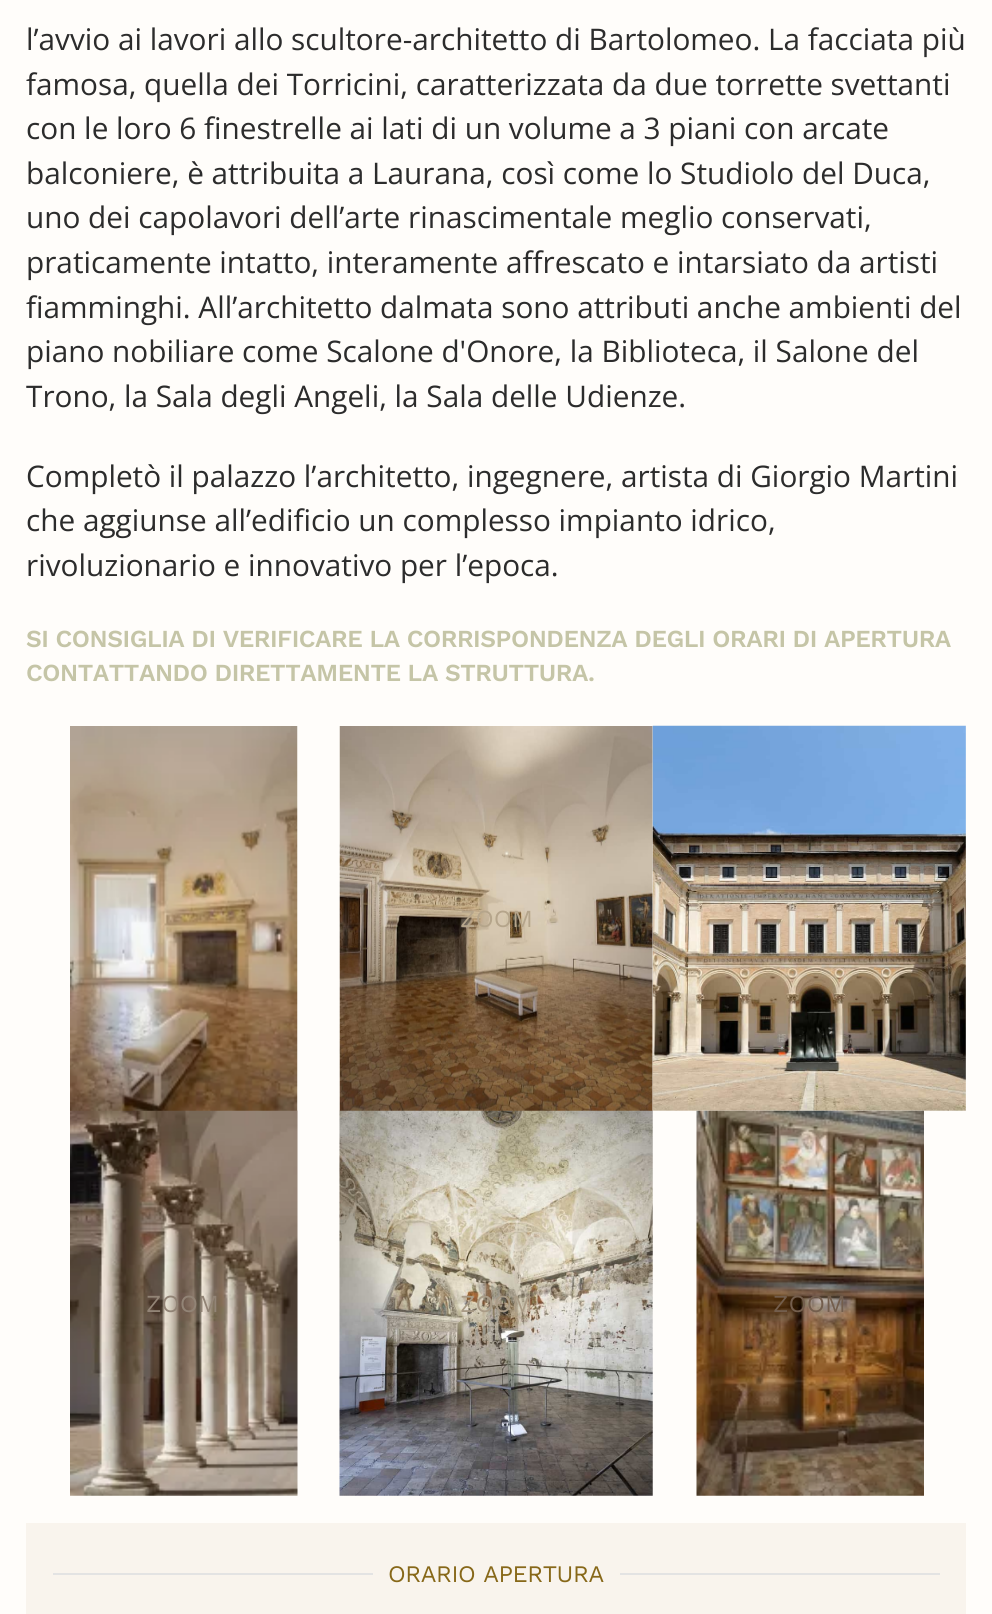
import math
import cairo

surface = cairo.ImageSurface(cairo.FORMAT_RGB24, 992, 1614)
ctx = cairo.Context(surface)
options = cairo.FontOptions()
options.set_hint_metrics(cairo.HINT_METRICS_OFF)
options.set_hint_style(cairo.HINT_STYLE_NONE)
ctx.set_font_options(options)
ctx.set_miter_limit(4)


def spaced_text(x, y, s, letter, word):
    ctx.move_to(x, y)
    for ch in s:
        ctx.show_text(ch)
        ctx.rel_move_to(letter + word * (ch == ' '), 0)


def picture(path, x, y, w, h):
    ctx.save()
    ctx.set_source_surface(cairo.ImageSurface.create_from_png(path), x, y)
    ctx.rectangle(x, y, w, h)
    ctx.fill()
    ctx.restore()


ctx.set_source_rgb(1, 0.992, 0.98)
ctx.paint()
ctx.select_font_face("Open Sans")
ctx.set_font_size(29.75)
ctx.set_source_rgb(0.173, 0.173, 0.173)
ctx.move_to(26, 50)
ctx.show_text("l’avvio ai lavori allo scultore-architetto di Bartolomeo. La facciata più")
ctx.move_to(26, 95)
ctx.show_text("famosa, quella dei Torricini, caratterizzata da due torrette svettanti")
ctx.move_to(26, 139)
ctx.show_text("con le loro 6 finestrelle ai lati di un volume a 3 piani con arcate")
ctx.move_to(26, 184)
ctx.show_text("balconiere, è attribuita a Laurana, così come lo Studiolo del Duca,")
ctx.move_to(26, 228)
ctx.show_text("uno dei capolavori dell’arte rinascimentale meglio conservati,")
ctx.move_to(26, 273)
ctx.show_text("praticamente intatto, interamente affrescato e intarsiato da artisti")
ctx.move_to(26, 318)
ctx.show_text("fiamminghi. All’architetto dalmata sono attributi anche ambienti del")
ctx.move_to(26, 362)
ctx.show_text("piano nobiliare come Scalone d'Onore, la Biblioteca, il Salone del")
ctx.move_to(26, 407)
ctx.show_text("Trono, la Sala degli Angeli, la Sala delle Udienze.")
ctx.move_to(26, 487)
ctx.show_text("Completò il palazzo l’architetto, ingegnere, artista di Giorgio Martini")
ctx.move_to(26, 531)
ctx.show_text("che aggiunse all’edificio un complesso impianto idrico,")
ctx.move_to(26, 576)
ctx.show_text("rivoluzionario e innovativo per l’epoca.")
ctx.select_font_face("Work Sans SemiBold")
ctx.set_font_size(24.5)
ctx.set_source_rgb(0.773, 0.773, 0.655)
spaced_text(26, 647, "SI CONSIGLIA DI VERIFICARE LA CORRISPONDENZA DEGLI ORARI DI APERTURA", -0.45, 0)
spaced_text(26, 681, "CONTATTANDO DIRETTAMENTE LA STRUTTURA.", -0.45, 0)
picture("img1.png", 70, 726, 228, 385)
picture("img2.png", 339, 726, 314, 385)
ctx.select_font_face("Work Sans")
ctx.set_source_rgb(0.71, 0.647, 0.545)
ctx.move_to(460, 927)
ctx.show_text("ZOOM")
picture("img3.png", 652, 725, 314, 386)
picture("img4.png", 70, 1110, 228, 386)
ctx.set_source_rgb(0.573, 0.518, 0.463)
ctx.move_to(146, 1312)
ctx.show_text("ZOOM")
picture("img5.png", 339, 1110, 314, 386)
ctx.set_source_rgb(0.663, 0.608, 0.525)
ctx.move_to(460, 1312)
ctx.show_text("ZOOM")
picture("img6.png", 696, 1110, 228, 386)
ctx.set_source_rgb(0.451, 0.369, 0.302)
ctx.move_to(773, 1312)
ctx.show_text("ZOOM")
ctx.set_source_rgb(0.973, 0.957, 0.929)
ctx.rectangle(26, 1523, 940, 91)
ctx.fill()
ctx.set_source_rgb(0.89, 0.89, 0.89)
ctx.rectangle(53, 1573, 320, 2)
ctx.fill()
ctx.set_font_size(23.75)
ctx.set_source_rgb(0.529, 0.408, 0.098)
spaced_text(388, 1582, "ORARIO APERTURA", -0.4, 0)
ctx.set_source_rgb(0.89, 0.89, 0.89)
ctx.rectangle(620, 1573, 320, 2)
ctx.fill()
surface.write_to_png("page.png")
